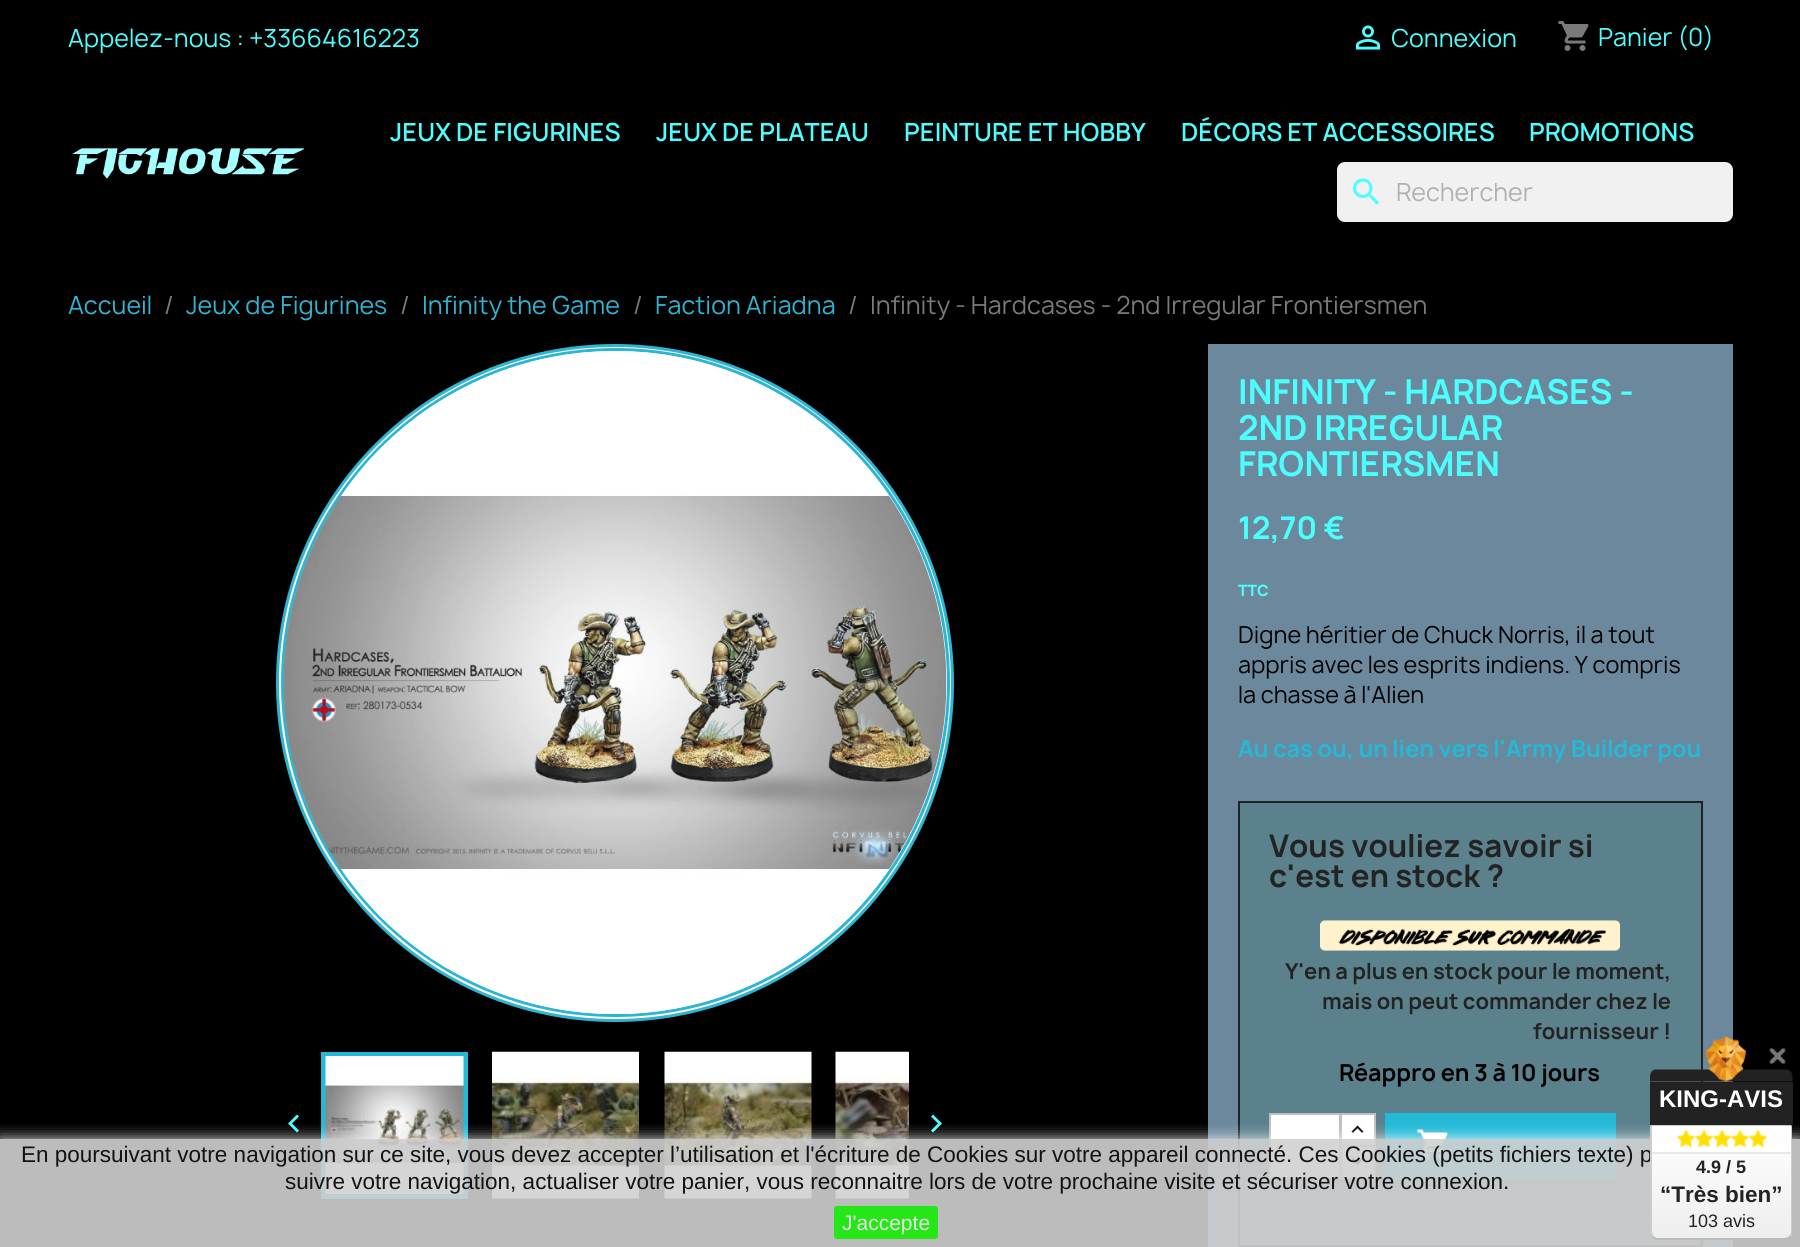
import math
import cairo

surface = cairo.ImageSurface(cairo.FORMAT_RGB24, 1800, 1247)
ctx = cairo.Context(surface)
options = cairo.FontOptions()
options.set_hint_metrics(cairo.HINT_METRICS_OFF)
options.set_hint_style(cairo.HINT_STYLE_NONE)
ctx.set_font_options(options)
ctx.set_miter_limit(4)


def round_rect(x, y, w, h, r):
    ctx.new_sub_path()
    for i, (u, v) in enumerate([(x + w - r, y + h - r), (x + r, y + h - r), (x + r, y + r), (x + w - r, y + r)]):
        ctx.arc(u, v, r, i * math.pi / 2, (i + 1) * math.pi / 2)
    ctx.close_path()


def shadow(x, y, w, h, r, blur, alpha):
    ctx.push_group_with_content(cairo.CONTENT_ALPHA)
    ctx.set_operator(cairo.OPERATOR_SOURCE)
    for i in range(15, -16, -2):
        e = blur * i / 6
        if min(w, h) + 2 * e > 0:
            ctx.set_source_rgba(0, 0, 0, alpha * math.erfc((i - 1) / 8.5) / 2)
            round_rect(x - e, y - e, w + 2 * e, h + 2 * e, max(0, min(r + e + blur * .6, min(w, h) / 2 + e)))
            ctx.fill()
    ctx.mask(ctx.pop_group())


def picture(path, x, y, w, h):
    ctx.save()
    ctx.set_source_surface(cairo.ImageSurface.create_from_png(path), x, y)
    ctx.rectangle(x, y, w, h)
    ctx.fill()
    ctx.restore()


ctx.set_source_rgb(0, 0, 0)
ctx.paint()
ctx.select_font_face("Manrope")
ctx.set_font_size(24)
ctx.set_source_rgb(0.294, 1, 1)
ctx.move_to(68, 47)
ctx.show_text("Appelez-nous : +33664616223")
picture("img1.png", 1355, 25, 26, 25)
ctx.move_to(1391, 47)
ctx.show_text("Connexion")
picture("img2.png", 1558, 21, 31, 30)
ctx.move_to(1598, 46)
ctx.show_text("Panier (0)")
picture("img3.png", 72, 148, 232, 31)
ctx.select_font_face("Manrope SemiBold")
ctx.move_to(390, 141)
ctx.show_text("JEUX DE FIGURINES")
ctx.move_to(656, 141)
ctx.show_text("JEUX DE PLATEAU")
ctx.move_to(904, 141)
ctx.show_text("PEINTURE ET HOBBY")
ctx.move_to(1181, 141)
ctx.show_text("DÉCORS ET ACCESSOIRES")
ctx.move_to(1529, 141)
ctx.show_text("PROMOTIONS")
ctx.set_source_rgb(0.945, 0.945, 0.945)
round_rect(1337, 162, 396, 60, 8)
ctx.fill()
picture("img4.png", 1353, 178, 27, 27)
ctx.select_font_face("Manrope")
ctx.set_source_rgb(0.694, 0.694, 0.694)
ctx.move_to(1396, 201)
ctx.show_text("Rechercher")
ctx.set_source_rgb(0.184, 0.71, 0.824)
ctx.move_to(68, 314)
ctx.show_text("Accueil")
ctx.set_source_rgb(0.478, 0.478, 0.478)
ctx.move_to(164, 314)
ctx.show_text("/")
ctx.set_source_rgb(0.184, 0.71, 0.824)
ctx.move_to(186, 314)
ctx.show_text("Jeux de Figurines")
ctx.set_source_rgb(0.478, 0.478, 0.478)
ctx.move_to(400, 314)
ctx.show_text("/")
ctx.set_source_rgb(0.184, 0.71, 0.824)
ctx.move_to(422, 314)
ctx.show_text("Infinity the Game")
ctx.set_source_rgb(0.478, 0.478, 0.478)
ctx.move_to(633, 314)
ctx.show_text("/")
ctx.set_source_rgb(0.184, 0.71, 0.824)
ctx.move_to(655, 314)
ctx.show_text("Faction Ariadna")
ctx.set_source_rgb(0.478, 0.478, 0.478)
ctx.move_to(848, 314)
ctx.show_text("/")
ctx.move_to(870, 314)
ctx.show_text("Infinity - Hardcases - 2nd Irregular Frontiersmen")
ctx.set_source_rgb(1, 1, 1)
ctx.new_path()
ctx.arc(615, 683, 337.5, 0, 2 * math.pi)
ctx.fill_preserve()
ctx.set_source_rgb(0.184, 0.71, 0.824)
ctx.set_line_width(3)
ctx.stroke()
ctx.arc(615.5, 682.5, 333, 0, 2 * math.pi)
ctx.stroke()
picture("img5.png", 283, 351, 664, 663)
ctx.rectangle(323.5, 1054.5, 142, 142)
ctx.set_source_rgb(0.141, 0.725, 0.843)
ctx.set_line_width(5)
ctx.stroke()
picture("img6.png", 492, 1051, 147, 148)
picture("img7.png", 664, 1051, 148, 148)
picture("img8.png", 835, 1051, 74, 148)
picture("img9.png", 325, 1056, 139, 138)
ctx.set_source_rgb(0.294, 1, 1)
ctx.new_path()
ctx.move_to(299, 1130.5)
ctx.line_to(297, 1132.5)
ctx.line_to(288, 1123.5)
ctx.line_to(297, 1114.5)
ctx.line_to(299, 1116.5)
ctx.line_to(292, 1123.5)
ctx.close_path()
ctx.fill()
ctx.new_path()
ctx.move_to(931, 1130.5)
ctx.line_to(938, 1123.5)
ctx.line_to(931, 1116.5)
ctx.line_to(933, 1114.5)
ctx.line_to(942, 1123.5)
ctx.line_to(933, 1132.5)
ctx.close_path()
ctx.fill()
ctx.set_source_rgb(0.42, 0.533, 0.616)
ctx.rectangle(1208, 344, 525, 903)
ctx.fill()
ctx.select_font_face("Manrope", cairo.FONT_SLANT_NORMAL, cairo.FONT_WEIGHT_BOLD)
ctx.set_font_size(33)
ctx.set_source_rgb(0.294, 1, 1)
ctx.move_to(1238, 404)
ctx.show_text("INFINITY - HARDCASES -")
ctx.move_to(1238, 440)
ctx.show_text("2ND IRREGULAR")
ctx.move_to(1238, 476)
ctx.show_text("FRONTIERSMEN")
ctx.set_font_size(30)
ctx.move_to(1238, 539)
ctx.show_text("12,70 €")
ctx.select_font_face("Manrope ExtraBold")
ctx.set_font_size(15)
ctx.move_to(1238, 596)
ctx.show_text("TTC")
ctx.select_font_face("Manrope")
ctx.set_font_size(22.5)
ctx.set_source_rgb(0, 0, 0)
ctx.move_to(1238, 643)
ctx.show_text("Digne héritier de Chuck Norris, il a tout")
ctx.move_to(1238, 673)
ctx.show_text("appris avec les esprits indiens. Y compris")
ctx.move_to(1238, 703)
ctx.show_text("la chasse à l'Alien")
ctx.select_font_face("Manrope", cairo.FONT_SLANT_NORMAL, cairo.FONT_WEIGHT_BOLD)
ctx.set_source_rgb(0.141, 0.725, 0.843)
ctx.move_to(1238, 757)
ctx.show_text("Au cas ou, un lien vers l'Army Builder pou")
ctx.set_source_rgb(0.357, 0.506, 0.553)
ctx.rectangle(1239, 802, 463, 444)
ctx.fill_preserve()
ctx.set_source_rgb(0.133, 0.133, 0.133)
ctx.set_line_width(2)
ctx.stroke()
ctx.set_font_size(30)
ctx.set_source_rgb(0.137, 0.137, 0.137)
ctx.move_to(1269, 857)
ctx.show_text("Vous vouliez savoir si")
ctx.move_to(1269, 887)
ctx.show_text("c'est en stock ?")
picture("img10.png", 1320, 920, 300, 31)
ctx.set_font_size(21)
ctx.move_to(1285, 979)
ctx.show_text("Y'en a plus en stock pour le moment,")
ctx.move_to(1322, 1009)
ctx.show_text("mais on peut commander chez le")
ctx.move_to(1533, 1039)
ctx.show_text("fournisseur !")
ctx.set_font_size(22.5)
ctx.set_source_rgb(0, 0, 0)
ctx.move_to(1339, 1081)
ctx.show_text("Réappro en 3 à 10 jours")
ctx.set_source_rgb(1, 1, 1)
ctx.rectangle(1342, 1115, 32, 30)
ctx.fill()
ctx.rectangle(1341, 1114, 34, 33)
ctx.set_source_rgb(0.749, 0.749, 0.749)
ctx.stroke()
ctx.set_source_rgb(1, 1, 1)
ctx.rectangle(1341, 1146, 34, 32)
ctx.fill_preserve()
ctx.set_source_rgb(0.749, 0.749, 0.749)
ctx.stroke()
ctx.set_source_rgb(1, 1, 1)
ctx.rectangle(1270, 1114, 70, 64)
ctx.fill_preserve()
ctx.set_source_rgb(0.749, 0.749, 0.749)
ctx.stroke()
picture("img11.png", 1351, 1125, 13, 8)
picture("img12.png", 1351, 1157, 13, 8)
ctx.set_source_rgb(0.141, 0.725, 0.843)
ctx.rectangle(1385, 1113, 231, 66)
ctx.fill()
picture("img13.png", 1417, 1129, 31, 31)
ctx.save()
ctx.rectangle(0, 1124, 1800, 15)
ctx.clip()
ctx.set_source_rgb(1, 1, 1)
shadow(0, 1139, 1800, 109, 0, 7.5, 0.9)
ctx.restore()
ctx.set_source_rgba(0.82, 0.82, 0.82, 0.9)
ctx.rectangle(0, 1139, 1800, 108)
ctx.fill()
ctx.select_font_face("Liberation Sans")
ctx.set_source_rgb(0.075, 0.078, 0.078)
ctx.move_to(21, 1162)
ctx.show_text("En poursuivant votre navigation sur ce site, vous devez accepter l’utilisation et l'écriture de Cookies sur votre appareil connecté. Ces Cookies (petits fichiers texte) p")
ctx.move_to(285, 1189)
ctx.show_text("suivre votre navigation, actualiser votre panier, vous reconnaitre lors de votre prochaine visite et sécuriser votre connexion.")
ctx.set_source_rgb(0.145, 0.902, 0.09)
round_rect(834, 1206, 104, 33, 3)
ctx.fill()
ctx.set_font_size(21)
ctx.set_source_rgb(0.902, 0.902, 0.902)
ctx.move_to(842, 1230)
ctx.show_text("J'accepte")
picture("img14.png", 1650, 1036, 143, 46)
ctx.set_source_rgb(0.133, 0.133, 0.133)
ctx.rectangle(1650, 1082, 143, 43)
ctx.fill()
ctx.select_font_face("Liberation Sans", cairo.FONT_SLANT_NORMAL, cairo.FONT_WEIGHT_BOLD)
ctx.set_font_size(24)
ctx.set_source_rgb(1, 1, 1)
ctx.move_to(1659, 1107)
ctx.show_text("KING-AVIS")
gradient = cairo.LinearGradient(1721, 1127, 1721, 1238)
gradient.add_color_stop_rgba(0, 1, 1, 1, 1)
gradient.add_color_stop_rgba(1, 0.933, 0.933, 0.933, 1)
ctx.set_source(gradient)
ctx.new_path()
ctx.move_to(1652, 1126)
ctx.line_to(1791, 1126)
ctx.line_to(1791, 1233)
ctx.curve_to(1791, 1235, 1788, 1238, 1785, 1238)
ctx.line_to(1658, 1238)
ctx.curve_to(1654, 1238, 1652, 1235, 1652, 1233)
ctx.close_path()
ctx.fill()
ctx.set_source_rgb(0.8, 0.8, 0.8)
ctx.new_path()
ctx.move_to(1650, 1125)
ctx.line_to(1652, 1127)
ctx.line_to(1652, 1126)
ctx.line_to(1791, 1126)
ctx.line_to(1792, 1125)
ctx.close_path()
ctx.fill()
ctx.new_path()
ctx.move_to(1792, 1126)
ctx.line_to(1792, 1233)
ctx.curve_to(1792, 1235, 1792, 1236, 1791, 1237)
ctx.line_to(1790, 1235)
ctx.line_to(1791, 1233)
ctx.line_to(1791, 1126)
ctx.close_path()
ctx.fill()
ctx.set_source_rgb(0.733, 0.733, 0.733)
ctx.new_path()
ctx.move_to(1791, 1237)
ctx.curve_to(1790, 1239, 1787, 1240, 1785, 1240)
ctx.line_to(1658, 1240)
ctx.curve_to(1655, 1240, 1653, 1239, 1652, 1237)
ctx.line_to(1653, 1235)
ctx.curve_to(1654, 1237, 1655, 1238, 1658, 1238)
ctx.line_to(1785, 1238)
ctx.curve_to(1787, 1238, 1789, 1237, 1790, 1235)
ctx.close_path()
ctx.fill()
ctx.set_source_rgb(0.8, 0.8, 0.8)
ctx.new_path()
ctx.move_to(1650, 1125)
ctx.line_to(1650, 1233)
ctx.curve_to(1650, 1235, 1651, 1236, 1652, 1237)
ctx.line_to(1653, 1235)
ctx.line_to(1652, 1233)
ctx.line_to(1652, 1127)
ctx.close_path()
ctx.fill()
picture("img15.png", 1769, 1048, 17, 16)
ctx.set_source_rgb(1, 1, 1)
ctx.rectangle(1652, 1143, 139, 9)
ctx.fill()
ctx.set_source_rgb(0.914, 0.914, 0.914)
ctx.rectangle(1652, 1152, 139, 2)
ctx.fill()
picture("img16.png", 1677, 1129, 18, 19)
picture("img17.png", 1694, 1129, 20, 19)
picture("img18.png", 1713, 1129, 18, 19)
picture("img17.png", 1730, 1129, 20, 19)
picture("img19.png", 1749, 1129, 18, 19)
ctx.set_font_size(18)
ctx.set_source_rgb(0.137, 0.137, 0.137)
ctx.move_to(1696, 1173)
ctx.show_text("4.9 / 5")
ctx.set_font_size(22.5)
ctx.move_to(1660, 1202)
ctx.show_text("“Très bien”")
ctx.select_font_face("Liberation Sans")
ctx.set_font_size(18)
ctx.move_to(1688, 1227)
ctx.show_text("103 avis")
surface.write_to_png("page.png")
